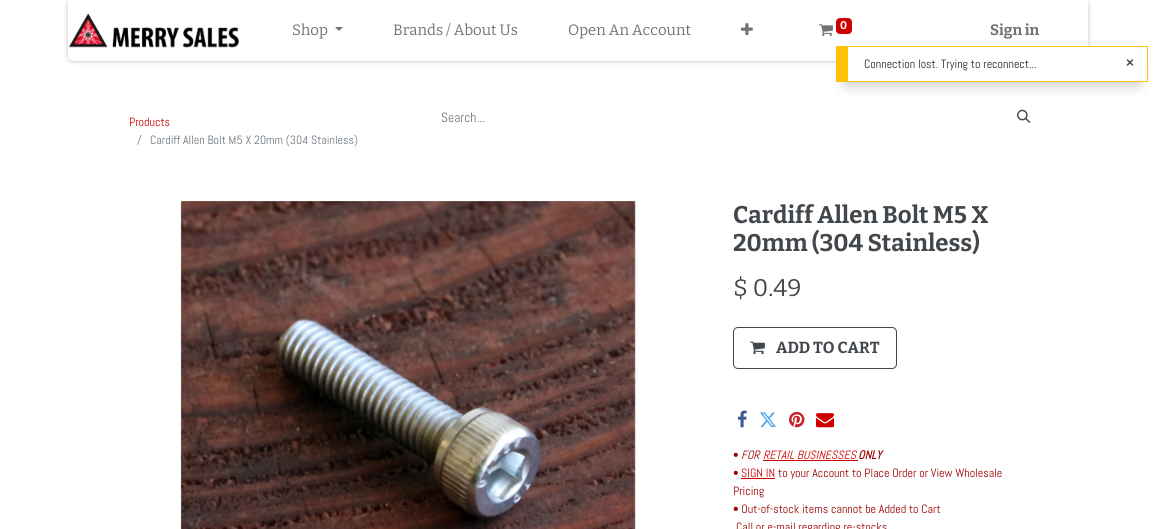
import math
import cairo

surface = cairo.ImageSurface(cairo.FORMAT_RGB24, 1156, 529)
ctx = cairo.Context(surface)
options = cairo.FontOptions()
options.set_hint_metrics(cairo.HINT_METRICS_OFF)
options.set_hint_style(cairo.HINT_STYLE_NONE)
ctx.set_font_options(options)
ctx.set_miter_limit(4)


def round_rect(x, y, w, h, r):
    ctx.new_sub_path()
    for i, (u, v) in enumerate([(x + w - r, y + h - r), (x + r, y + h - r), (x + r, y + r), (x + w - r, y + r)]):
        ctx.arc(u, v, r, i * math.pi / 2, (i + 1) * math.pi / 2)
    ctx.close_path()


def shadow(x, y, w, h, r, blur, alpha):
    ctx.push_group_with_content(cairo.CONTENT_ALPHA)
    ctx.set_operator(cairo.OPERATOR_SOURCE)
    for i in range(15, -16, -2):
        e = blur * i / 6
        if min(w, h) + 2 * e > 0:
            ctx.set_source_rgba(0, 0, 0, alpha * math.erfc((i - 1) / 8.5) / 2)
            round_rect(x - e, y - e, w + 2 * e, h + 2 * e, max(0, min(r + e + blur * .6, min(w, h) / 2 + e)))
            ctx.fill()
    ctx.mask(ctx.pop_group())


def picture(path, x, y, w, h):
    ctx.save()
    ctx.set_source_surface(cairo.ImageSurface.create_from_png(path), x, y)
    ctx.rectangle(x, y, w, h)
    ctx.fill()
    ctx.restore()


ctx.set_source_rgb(1, 1, 1)
ctx.paint()
ctx.set_source_rgb(0, 0, 0)
shadow(68, 0, 1020, 61, 5, 2.5, 0.25)
ctx.set_source_rgb(1, 1, 1)
ctx.new_path()
ctx.move_to(68, 0)
ctx.line_to(1088, 0)
ctx.line_to(1088, 56)
ctx.curve_to(1088, 59, 1086, 61, 1083, 61)
ctx.line_to(73, 61)
ctx.curve_to(70, 61, 68, 59, 68, 56)
ctx.close_path()
ctx.fill()
picture("img1.png", 69, 13, 171, 35)
ctx.select_font_face("Bitter")
ctx.set_font_size(15)
ctx.set_source_rgb(0.451, 0.451, 0.451)
ctx.move_to(292, 35)
ctx.show_text("Shop")
ctx.new_path()
ctx.move_to(335, 27)
ctx.line_to(343, 27)
ctx.line_to(339, 31)
ctx.close_path()
ctx.fill()
ctx.move_to(393, 35)
ctx.show_text("Brands / About Us")
ctx.move_to(568, 35)
ctx.show_text("Open An Account")
picture("img2.png", 741, 23, 12, 12)
picture("img3.png", 819, 24, 14, 12)
ctx.set_source_rgb(0.808, 0, 0)
round_rect(836, 18, 16, 16, 4)
ctx.fill()
ctx.select_font_face("Bitter", cairo.FONT_SLANT_NORMAL, cairo.FONT_WEIGHT_BOLD)
ctx.set_font_size(11)
ctx.set_source_rgb(1, 1, 1)
ctx.move_to(840, 29)
ctx.show_text("0")
ctx.set_font_size(15)
ctx.set_source_rgb(0.451, 0.451, 0.451)
ctx.move_to(990, 35)
ctx.show_text("Sign in")
ctx.select_font_face("Abel")
ctx.set_font_size(12)
ctx.set_source_rgb(0.808, 0, 0)
ctx.move_to(129, 126)
ctx.show_text("Products")
ctx.set_source_rgb(0.424, 0.459, 0.49)
ctx.move_to(137, 144)
ctx.show_text("/")
ctx.move_to(150, 144)
ctx.show_text("Cardiff Allen Bolt M5 X 20mm (304 Stainless)")
ctx.set_font_size(13.5)
ctx.move_to(441, 122)
ctx.show_text("Search...")
picture("img4.png", 1017, 109, 14, 14)
picture("img5.png", 180, 201, 456, 328)
ctx.select_font_face("Bitter", cairo.FONT_SLANT_NORMAL, cairo.FONT_WEIGHT_BOLD)
ctx.set_font_size(24)
ctx.set_source_rgb(0.259, 0.278, 0.298)
ctx.move_to(733, 223)
ctx.show_text("Cardiff Allen Bolt M5 X")
ctx.move_to(733, 251)
ctx.show_text("20mm (304 Stainless)")
ctx.select_font_face("Bitter")
ctx.move_to(733, 296)
ctx.show_text("$ 0.49")
round_rect(733.5, 327.5, 163, 41, 4.5)
ctx.set_line_width(1)
ctx.stroke()
picture("img6.png", 750, 341, 15, 14)
ctx.select_font_face("Bitter", cairo.FONT_SLANT_NORMAL, cairo.FONT_WEIGHT_BOLD)
ctx.set_font_size(16)
ctx.move_to(776, 353)
ctx.show_text("ADD TO CART")
picture("img7.png", 737, 410, 10, 18)
picture("img8.png", 760, 412, 16, 15)
picture("img9.png", 789, 411, 16, 17)
picture("img10.png", 816, 413, 18, 15)
ctx.select_font_face("Abel")
ctx.set_font_size(12)
ctx.set_source_rgb(0.612, 0, 0)
ctx.move_to(733, 459)
ctx.show_text("•")
ctx.select_font_face("Abel", cairo.FONT_SLANT_ITALIC)
ctx.move_to(741, 459)
ctx.show_text("FOR")
ctx.set_source_rgb(0.808, 0, 0)
ctx.move_to(763, 459)
ctx.show_text("RETAIL BUSINESSES")
ctx.rectangle(763, 460, 93, 1)
ctx.fill()
ctx.set_source_rgb(0.612, 0, 0)
ctx.rectangle(856, 460, 2, 1)
ctx.fill()
ctx.select_font_face("Abel", cairo.FONT_SLANT_ITALIC, cairo.FONT_WEIGHT_BOLD)
ctx.move_to(858, 459)
ctx.show_text("ONLY")
ctx.select_font_face("Abel")
ctx.move_to(733, 477)
ctx.show_text("•")
ctx.set_source_rgb(0.808, 0, 0)
ctx.move_to(741, 477)
ctx.show_text("SIGN IN")
ctx.rectangle(741, 478, 34, 1)
ctx.fill()
ctx.set_source_rgb(0.612, 0, 0)
ctx.move_to(778, 477)
ctx.show_text("to your Account to Place Order or View Wholesale")
ctx.move_to(733, 495)
ctx.show_text("Pricing")
ctx.move_to(733, 513)
ctx.show_text("• Out-of-stock items cannot be Added to Cart")
ctx.move_to(736, 531)
ctx.show_text("Call or e-mail regarding re-stocks")
ctx.set_source_rgb(0, 0, 0)
shadow(846, 68, 292, 16, 0, 7, 0.25)
ctx.set_source_rgb(1, 1, 1)
ctx.rectangle(848, 47, 299, 34)
ctx.fill()
ctx.set_source_rgb(1, 0.757, 0.027)
ctx.rectangle(848, 46, 300, 1)
ctx.fill()
ctx.rectangle(1147, 46, 1, 36)
ctx.fill()
ctx.rectangle(848, 81, 300, 1)
ctx.fill()
ctx.rectangle(836, 46, 12, 36)
ctx.fill()
ctx.set_source_rgb(0.129, 0.145, 0.161)
ctx.move_to(864, 68)
ctx.show_text("Connection lost. Trying to reconnect...")
ctx.select_font_face("Liberation Sans", cairo.FONT_SLANT_NORMAL, cairo.FONT_WEIGHT_BOLD)
ctx.set_font_size(13.5)
ctx.set_source_rgb(0.259, 0.278, 0.298)
ctx.move_to(1126, 67)
ctx.show_text("×")
surface.write_to_png("page.png")
